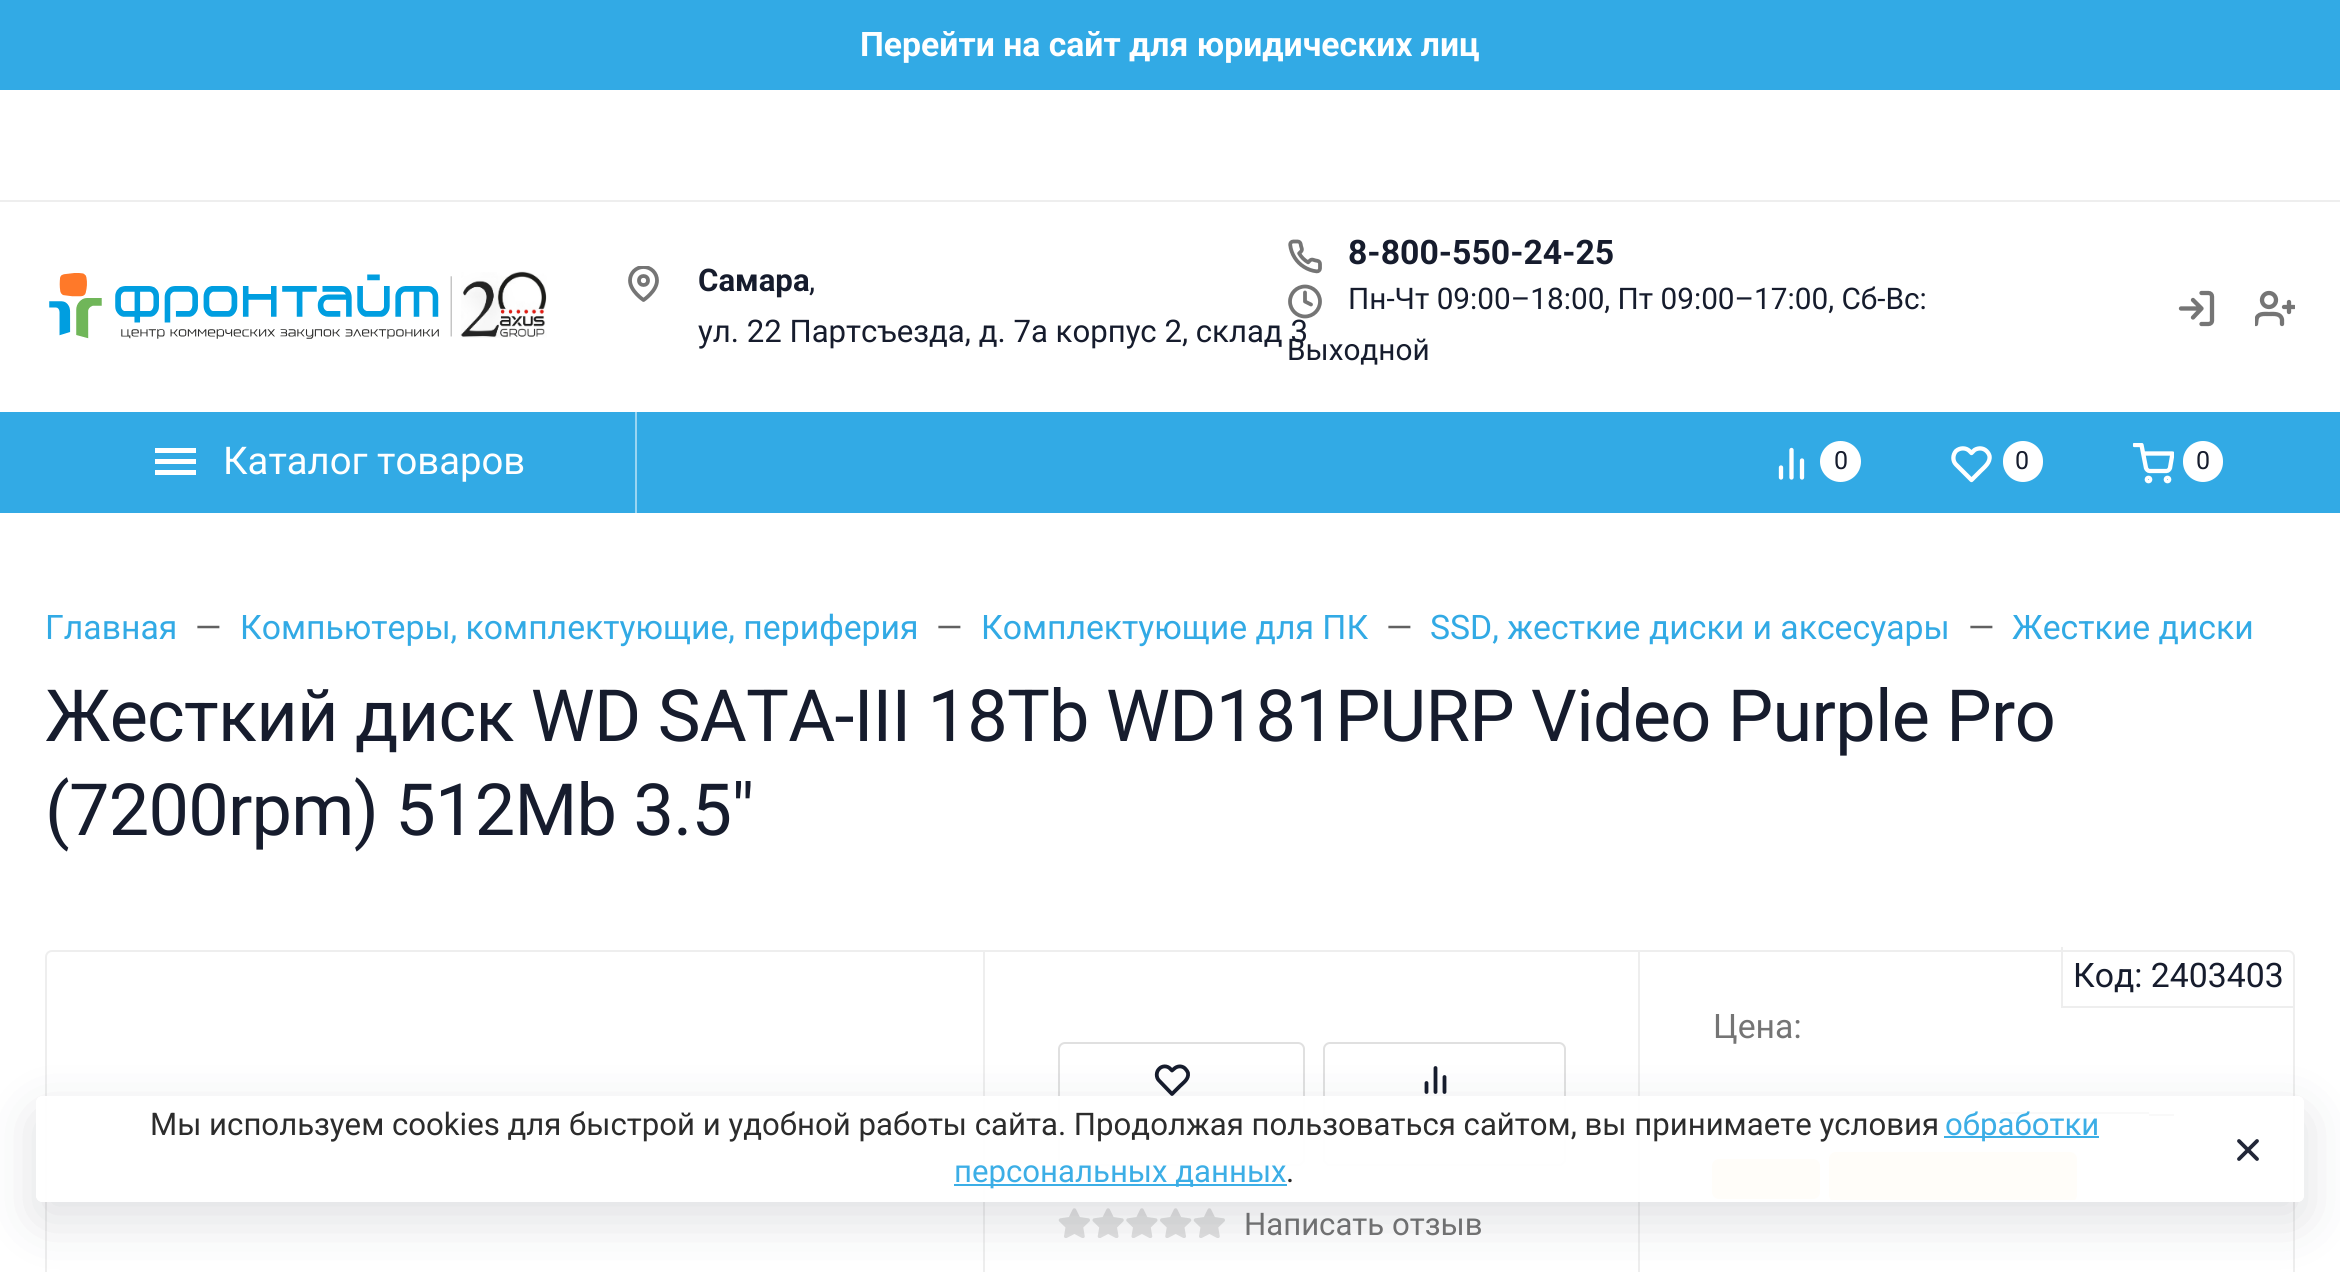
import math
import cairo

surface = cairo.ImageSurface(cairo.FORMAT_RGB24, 2340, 1272)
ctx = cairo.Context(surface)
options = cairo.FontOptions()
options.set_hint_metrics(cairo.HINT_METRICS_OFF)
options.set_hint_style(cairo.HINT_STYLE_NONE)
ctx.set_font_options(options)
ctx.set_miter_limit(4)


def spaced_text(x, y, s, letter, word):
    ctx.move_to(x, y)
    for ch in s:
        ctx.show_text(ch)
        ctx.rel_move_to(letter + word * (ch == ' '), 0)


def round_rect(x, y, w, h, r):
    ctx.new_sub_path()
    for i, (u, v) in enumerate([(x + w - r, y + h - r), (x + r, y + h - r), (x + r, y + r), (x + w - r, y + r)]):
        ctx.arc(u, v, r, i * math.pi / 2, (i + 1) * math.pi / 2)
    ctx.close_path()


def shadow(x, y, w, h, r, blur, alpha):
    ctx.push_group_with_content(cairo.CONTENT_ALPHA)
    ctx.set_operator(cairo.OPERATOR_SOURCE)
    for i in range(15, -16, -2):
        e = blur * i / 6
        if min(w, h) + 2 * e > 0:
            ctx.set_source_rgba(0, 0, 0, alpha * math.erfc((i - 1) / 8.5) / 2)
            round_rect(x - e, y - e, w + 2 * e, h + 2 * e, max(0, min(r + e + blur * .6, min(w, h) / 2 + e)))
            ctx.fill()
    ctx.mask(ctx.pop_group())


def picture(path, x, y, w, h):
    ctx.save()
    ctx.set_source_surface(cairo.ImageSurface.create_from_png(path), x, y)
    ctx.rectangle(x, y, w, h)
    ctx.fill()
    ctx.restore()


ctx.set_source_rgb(1, 1, 1)
ctx.paint()
ctx.set_source_rgb(0.196, 0.667, 0.898)
ctx.rectangle(0, 0, 2340, 90)
ctx.fill()
ctx.select_font_face("Roboto", cairo.FONT_SLANT_NORMAL, cairo.FONT_WEIGHT_BOLD)
ctx.set_font_size(33.75)
ctx.set_source_rgb(1, 1, 1)
ctx.move_to(860, 56)
ctx.show_text("Перейти на сайт для юридических лиц")
ctx.set_source_rgb(0.933, 0.933, 0.933)
ctx.rectangle(0, 200, 2340, 2)
ctx.fill()
picture("img1.png", 49, 271, 498, 68)
ctx.save()
ctx.rectangle(626, 266, 36, 36)
ctx.clip()
ctx.new_path()
ctx.move_to(657, 280.5)
ctx.curve_to(657, 291, 643.5, 300, 643.5, 300)
ctx.curve_to(643.5, 300, 630, 291, 630, 280.5)
ctx.curve_to(630, 273, 636, 267, 643.5, 267)
ctx.curve_to(651, 267, 657, 273, 657, 280.5)
ctx.close_path()
ctx.set_source_rgb(0.459, 0.459, 0.459)
ctx.set_line_width(3.8)
ctx.set_line_cap(cairo.LINE_CAP_ROUND)
ctx.set_line_join(cairo.LINE_JOIN_ROUND)
ctx.stroke()
ctx.restore()
ctx.arc(643.5, 280.5, 4.5, 0, 2 * math.pi)
ctx.set_source_rgb(0.459, 0.459, 0.459)
ctx.set_line_width(3.8)
ctx.stroke()
ctx.set_font_size(31.15)
ctx.set_source_rgb(0.086, 0.11, 0.176)
ctx.move_to(698, 291)
ctx.show_text("Самара")
ctx.select_font_face("Roboto")
ctx.move_to(809, 291)
ctx.show_text(",")
ctx.move_to(698, 342)
ctx.show_text("ул. 22 Партсъезда, д. 7а корпус 2, склад 3")
picture("img2.png", 1288, 239, 34, 35)
ctx.select_font_face("Roboto", cairo.FONT_SLANT_NORMAL, cairo.FONT_WEIGHT_BOLD)
ctx.set_font_size(33.75)
ctx.move_to(1348, 264)
ctx.show_text("8-800-550-24-25")
ctx.new_path()
ctx.arc(1305, 301.5, 15, 0, 2 * math.pi)
ctx.set_source_rgb(0.459, 0.459, 0.459)
ctx.stroke()
ctx.select_font_face("Roboto")
ctx.set_font_size(29.75)
ctx.set_source_rgb(0.086, 0.11, 0.176)
ctx.move_to(1348, 309)
ctx.show_text("Пн-Чт 09:00–18:00, Пт 09:00–17:00, Сб-Вс:")
ctx.new_path()
ctx.move_to(1305, 292.5)
ctx.line_to(1305, 301.5)
ctx.line_to(1311, 304.5)
ctx.set_source_rgb(0.459, 0.459, 0.459)
ctx.set_line_cap(cairo.LINE_CAP_ROUND)
ctx.set_line_join(cairo.LINE_JOIN_ROUND)
ctx.stroke()
ctx.set_source_rgb(0.086, 0.11, 0.176)
ctx.move_to(1287, 360)
ctx.show_text("Выходной")
ctx.new_path()
ctx.move_to(2201.5, 293)
ctx.line_to(2208.5, 293)
ctx.curve_to(2210.5, 293, 2212, 294.5, 2212, 296.5)
ctx.line_to(2212, 321)
ctx.curve_to(2212, 322.5, 2210.5, 324, 2208.5, 324)
ctx.line_to(2201.5, 324)
ctx.move_to(2193, 317.5)
ctx.line_to(2201.5, 308.5)
ctx.line_to(2193, 300)
ctx.move_to(2201.5, 308.5)
ctx.line_to(2181, 308.5)
ctx.set_source_rgb(0.459, 0.459, 0.459)
ctx.set_line_width(4.3)
ctx.stroke()
ctx.arc(2269, 300, 7, 0, 2 * math.pi)
ctx.set_line_cap(cairo.LINE_CAP_BUTT)
ctx.set_line_join(cairo.LINE_JOIN_MITER)
ctx.stroke()
ctx.new_path()
ctx.move_to(2289, 302)
ctx.line_to(2289, 312)
ctx.set_line_cap(cairo.LINE_CAP_ROUND)
ctx.set_line_join(cairo.LINE_JOIN_ROUND)
ctx.stroke()
ctx.save()
ctx.rectangle(2255, 288, 40, 41)
ctx.clip()
ctx.new_path()
ctx.move_to(2294, 307)
ctx.line_to(2284, 307)
ctx.stroke()
ctx.new_path()
ctx.move_to(2282, 324)
ctx.line_to(2282, 319.5)
ctx.curve_to(2280.5, 313, 2274, 314, 2269, 314)
ctx.curve_to(2264, 314, 2257.5, 313, 2256.5, 319.5)
ctx.line_to(2256, 324)
ctx.stroke()
ctx.restore()
ctx.set_source_rgb(0.196, 0.667, 0.898)
ctx.rectangle(0, 412, 2340, 101)
ctx.fill()
ctx.set_source_rgb(0.6, 0.835, 0.949)
ctx.rectangle(635, 412, 2, 101)
ctx.fill()
ctx.set_source_rgb(1, 1, 1)
ctx.rectangle(155, 448, 41, 5)
ctx.fill()
ctx.rectangle(155, 459, 41, 5)
ctx.fill()
ctx.rectangle(155, 470, 41, 5)
ctx.fill()
ctx.set_font_size(38.25)
ctx.move_to(223, 474)
ctx.show_text("Каталог товаров")
ctx.new_path()
ctx.move_to(1802, 477.5)
ctx.line_to(1802, 460.5)
ctx.move_to(1791.5, 477.5)
ctx.line_to(1791.5, 450)
ctx.move_to(1781, 477.5)
ctx.line_to(1781, 467.5)
ctx.stroke()
ctx.arc(1840.5, 461.5, 20.5, 0, 2 * math.pi)
ctx.fill()
ctx.set_font_size(25)
ctx.set_source_rgb(0.086, 0.11, 0.176)
ctx.move_to(1834, 469)
ctx.show_text("0")
ctx.new_path()
ctx.move_to(1986.5, 451)
ctx.curve_to(1983.5, 448, 1978.5, 447.5, 1974.5, 450)
ctx.line_to(1971.5, 453)
ctx.line_to(1969.5, 451)
ctx.curve_to(1966, 447.5, 1960, 447.5, 1956, 451)
ctx.curve_to(1952.5, 455, 1952.5, 461, 1956, 464.5)
ctx.line_to(1971.5, 480)
ctx.line_to(1980.5, 471)
ctx.curve_to(1984.5, 467, 1990.5, 462.5, 1989.5, 456)
ctx.curve_to(1989, 454, 1988, 452.5, 1986.5, 451)
ctx.close_path()
ctx.set_source_rgb(1, 1, 1)
ctx.stroke()
round_rect(2003, 441, 40, 41, 20)
ctx.fill()
ctx.set_source_rgb(0.086, 0.11, 0.176)
ctx.move_to(2015, 469)
ctx.show_text("0")
ctx.save()
ctx.rectangle(2133, 443, 41, 41)
ctx.clip()
ctx.new_path()
ctx.move_to(2134.5, 445)
ctx.line_to(2141.5, 445)
ctx.line_to(2146, 468)
ctx.curve_to(2146.5, 469.5, 2148, 471, 2149.5, 471)
ctx.line_to(2166.5, 471)
ctx.curve_to(2168, 471, 2169.5, 469.5, 2170, 468)
ctx.line_to(2172.5, 453.5)
ctx.line_to(2143.5, 453.5)
ctx.set_source_rgb(1, 1, 1)
ctx.stroke()
ctx.restore()
ctx.arc(2148.5, 479.5, 1.7, 0, 2 * math.pi)
ctx.set_source_rgb(1, 1, 1)
ctx.set_line_cap(cairo.LINE_CAP_BUTT)
ctx.set_line_join(cairo.LINE_JOIN_MITER)
ctx.stroke()
ctx.arc(2167.5, 479.5, 1.7, 0, 2 * math.pi)
ctx.stroke()
round_rect(2183, 441, 40, 41, 20)
ctx.fill()
ctx.set_source_rgb(0.086, 0.11, 0.176)
ctx.move_to(2196, 469)
ctx.show_text("0")
ctx.set_font_size(33.75)
ctx.set_source_rgb(0.196, 0.667, 0.898)
ctx.move_to(45, 639)
ctx.show_text("Главная")
ctx.set_source_rgb(0.38, 0.38, 0.38)
ctx.move_to(195, 639)
ctx.show_text("—")
ctx.set_source_rgb(0.196, 0.667, 0.898)
ctx.move_to(240, 639)
ctx.show_text("Компьютеры, комплектующие, периферия")
ctx.set_source_rgb(0.38, 0.38, 0.38)
ctx.move_to(936, 639)
ctx.show_text("—")
ctx.set_source_rgb(0.196, 0.667, 0.898)
ctx.move_to(981, 639)
ctx.show_text("Комплектующие для ПК")
ctx.set_source_rgb(0.38, 0.38, 0.38)
ctx.move_to(1386, 639)
ctx.show_text("—")
ctx.set_source_rgb(0.196, 0.667, 0.898)
ctx.move_to(1430, 639)
ctx.show_text("SSD, жесткие диски и аксесуары")
ctx.set_source_rgb(0.38, 0.38, 0.38)
ctx.move_to(1968, 639)
ctx.show_text("—")
ctx.set_source_rgb(0.196, 0.667, 0.898)
ctx.move_to(2012, 639)
ctx.show_text("Жесткие диски")
ctx.set_font_size(72)
ctx.set_source_rgb(0.086, 0.11, 0.176)
spaced_text(45, 741, "Жесткий диск WD SATA-III 18Tb WD181PURP Video Purple Pro", -0.72, 0)
spaced_text(45, 835, "(7200rpm) 512Mb 3.5\"", -0.72, 0)
round_rect(46, 951, 2248, 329, 6)
ctx.set_source_rgb(0.933, 0.933, 0.933)
ctx.set_line_width(2)
ctx.stroke()
ctx.rectangle(983, 952, 2, 320)
ctx.fill()
ctx.rectangle(1638, 952, 2, 320)
ctx.fill()
ctx.set_font_size(33.75)
ctx.set_source_rgb(0.086, 0.11, 0.176)
ctx.move_to(2073, 987)
ctx.show_text("Код: 2403403")
ctx.set_source_rgb(0.933, 0.933, 0.933)
ctx.rectangle(2061, 1006, 232, 2)
ctx.fill()
ctx.rectangle(2061, 947, 2, 61)
ctx.fill()
ctx.set_source_rgb(0.459, 0.459, 0.459)
ctx.move_to(1713, 1038)
ctx.show_text("Цена:")
ctx.rectangle(2000, 1112, 149, 2)
ctx.fill()
ctx.rectangle(2149, 1114, 25, 2)
ctx.fill()
ctx.set_source_rgb(0.98, 0.843, 0.463)
round_rect(1712, 1159, 108, 40, 7)
ctx.fill()
round_rect(1829, 1152, 248, 50, 7)
ctx.fill()
round_rect(1059, 1043, 245, 122, 6)
ctx.set_source_rgb(0.878, 0.878, 0.878)
ctx.stroke()
ctx.new_path()
ctx.move_to(1185.5, 1069)
ctx.curve_to(1183, 1066, 1178.5, 1065.5, 1175, 1068)
ctx.line_to(1172, 1070.5)
ctx.line_to(1170.5, 1069)
ctx.curve_to(1167.5, 1065.5, 1162, 1065.5, 1159, 1069)
ctx.curve_to(1156, 1072, 1156, 1077.5, 1159, 1080.5)
ctx.line_to(1172, 1094)
ctx.line_to(1180, 1086)
ctx.curve_to(1183.5, 1082.5, 1189, 1079, 1188, 1073)
ctx.curve_to(1187.5, 1071.5, 1186.5, 1070, 1185.5, 1069)
ctx.close_path()
ctx.set_source_rgb(0.086, 0.11, 0.176)
ctx.set_line_width(3.8)
ctx.set_line_cap(cairo.LINE_CAP_ROUND)
ctx.set_line_join(cairo.LINE_JOIN_ROUND)
ctx.stroke()
round_rect(1324, 1043, 241, 122, 6)
ctx.set_source_rgb(0.878, 0.878, 0.878)
ctx.set_line_width(2)
ctx.set_line_cap(cairo.LINE_CAP_BUTT)
ctx.set_line_join(cairo.LINE_JOIN_MITER)
ctx.stroke()
ctx.new_path()
ctx.move_to(1444.5, 1092)
ctx.line_to(1444.5, 1077)
ctx.move_to(1435.5, 1092)
ctx.line_to(1435.5, 1068)
ctx.move_to(1426.5, 1092)
ctx.line_to(1426.5, 1083)
ctx.set_source_rgb(0.086, 0.11, 0.176)
ctx.set_line_width(3.8)
ctx.set_line_cap(cairo.LINE_CAP_ROUND)
ctx.set_line_join(cairo.LINE_JOIN_ROUND)
ctx.stroke()
picture("img3.png", 1058, 1208, 32, 30)
picture("img4.png", 1092, 1208, 32, 30)
picture("img5.png", 1126, 1208, 32, 30)
picture("img6.png", 1160, 1208, 32, 30)
picture("img3.png", 1193, 1208, 32, 30)
ctx.set_font_size(31.15)
ctx.set_source_rgb(0.459, 0.459, 0.459)
ctx.move_to(1244, 1235)
ctx.show_text("Написать отзыв")
ctx.save()
ctx.set_fill_rule(cairo.FILL_RULE_EVEN_ODD)
ctx.new_path()
ctx.move_to(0, 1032)
ctx.line_to(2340, 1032)
ctx.line_to(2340, 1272)
ctx.line_to(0, 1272)
ctx.close_path()
ctx.move_to(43, 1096)
ctx.line_to(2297, 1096)
ctx.curve_to(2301, 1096, 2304, 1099, 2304, 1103)
ctx.line_to(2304, 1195)
ctx.curve_to(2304, 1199, 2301, 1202, 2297, 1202)
ctx.line_to(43, 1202)
ctx.curve_to(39, 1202, 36, 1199, 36, 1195)
ctx.line_to(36, 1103)
ctx.curve_to(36, 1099, 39, 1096, 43, 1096)
ctx.close_path()
ctx.clip()
ctx.set_source_rgb(0.086, 0.11, 0.176)
shadow(36, 1114, 2268, 106, 7, 27, 0.14)
ctx.restore()
ctx.set_source_rgba(1, 1, 1, 0.95)
round_rect(36, 1096, 2268, 106, 7)
ctx.fill()
round_rect(37, 1097, 2266, 104, 6)
ctx.set_line_width(2)
ctx.set_line_cap(cairo.LINE_CAP_BUTT)
ctx.set_line_join(cairo.LINE_JOIN_MITER)
ctx.stroke()
ctx.set_source_rgb(0.173, 0.173, 0.173)
ctx.move_to(150, 1135)
ctx.show_text("Мы используем cookies для быстрой и удобной работы сайта. Продолжая пользоваться сайтом, вы принимаете условия")
ctx.set_source_rgb(0.235, 0.682, 0.902)
ctx.rectangle(1944, 1136, 155, 2)
ctx.fill()
ctx.move_to(1945, 1135)
ctx.show_text("обработки")
ctx.rectangle(954, 1184, 333, 2)
ctx.fill()
ctx.move_to(954, 1182)
ctx.show_text("персональных данных")
ctx.set_source_rgb(0.173, 0.173, 0.173)
ctx.move_to(1286, 1182)
ctx.show_text(".")
ctx.new_path()
ctx.move_to(2257, 1141)
ctx.line_to(2239, 1159)
ctx.move_to(2239, 1141)
ctx.line_to(2257, 1159)
ctx.set_source_rgb(0.133, 0.153, 0.22)
ctx.set_line_width(3.8)
ctx.set_line_cap(cairo.LINE_CAP_ROUND)
ctx.set_line_join(cairo.LINE_JOIN_ROUND)
ctx.stroke()
surface.write_to_png("page.png")
